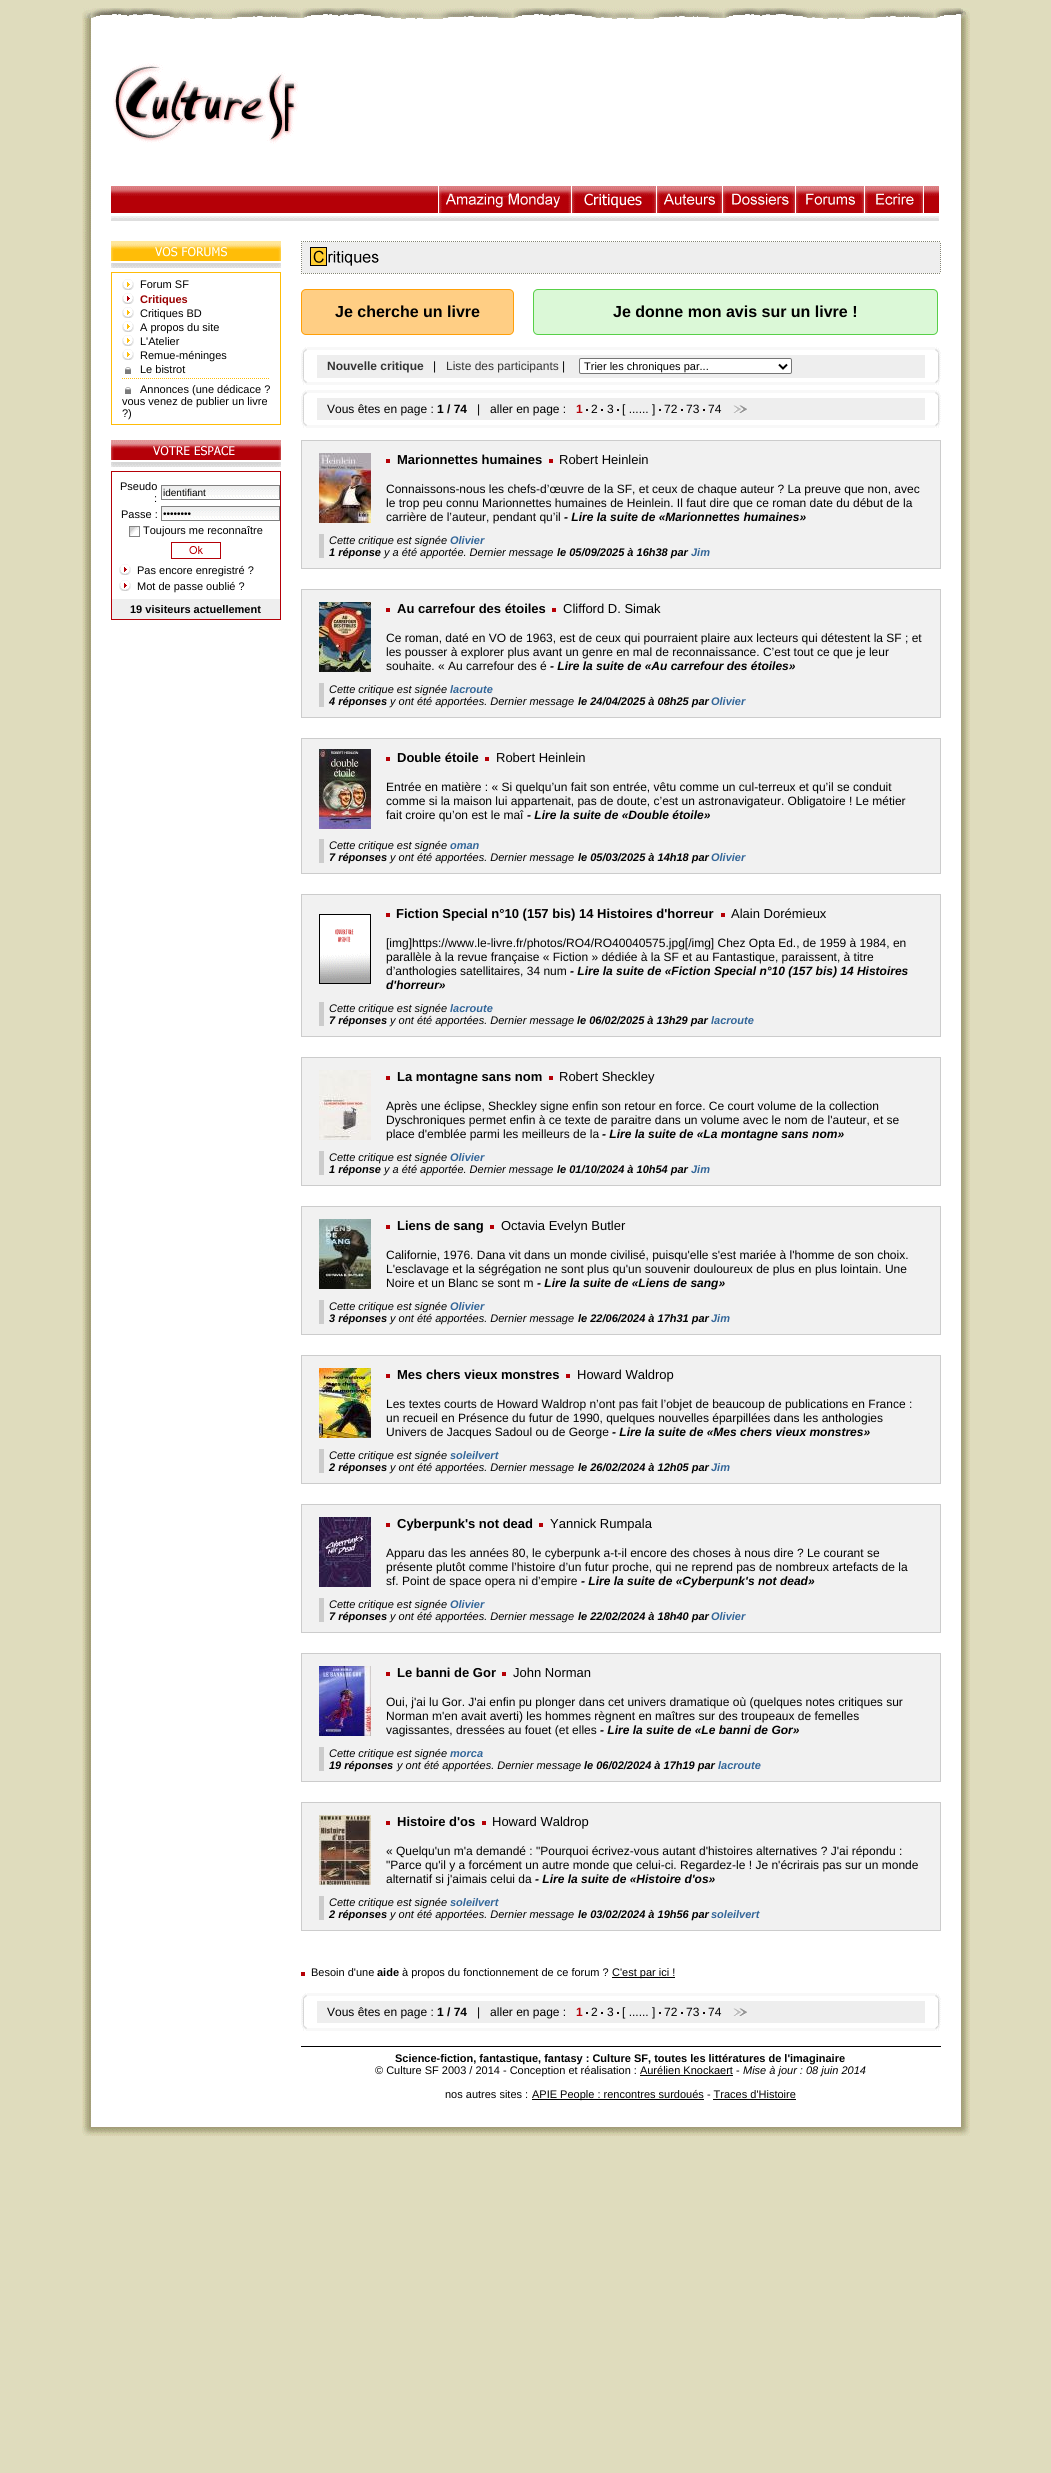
import math
import cairo

surface = cairo.ImageSurface(cairo.FORMAT_RGB24, 1051, 2473)
ctx = cairo.Context(surface)
options = cairo.FontOptions()
options.set_hint_metrics(cairo.HINT_METRICS_OFF)
options.set_hint_style(cairo.HINT_STYLE_NONE)
ctx.set_font_options(options)
ctx.set_miter_limit(4)


def round_rect(x, y, w, h, r):
    ctx.new_sub_path()
    for i, (u, v) in enumerate([(x + w - r, y + h - r), (x + r, y + h - r), (x + r, y + r), (x + w - r, y + r)]):
        ctx.arc(u, v, r, i * math.pi / 2, (i + 1) * math.pi / 2)
    ctx.close_path()


def picture(path, x, y, w, h):
    ctx.save()
    ctx.set_source_surface(cairo.ImageSurface.create_from_png(path), x, y)
    ctx.rectangle(x, y, w, h)
    ctx.fill()
    ctx.restore()


ctx.set_source_rgb(0.875, 0.863, 0.741)
ctx.paint()
ctx.set_source_rgb(1, 1, 1)
ctx.rectangle(91, 19, 870, 2108)
ctx.fill()
picture("img1.png", 82, 8, 9, 11)
picture("img2.png", 91, 8, 870, 11)
picture("img3.png", 961, 8, 9, 11)
picture("img4.png", 82, 19, 9, 5)
picture("img5.png", 961, 19, 9, 5)
picture("img6.png", 82, 24, 9, 207)
picture("img7.png", 113, 63, 186, 81)
ctx.set_source_rgb(0.71, 0, 0.031)
ctx.rectangle(111, 196, 828, 17)
ctx.fill()
picture("img8.png", 111, 186, 327, 10)
picture("img9.png", 439, 186, 133, 27)
picture("img10.png", 572, 186, 85, 27)
picture("img11.png", 657, 186, 66, 27)
picture("img12.png", 723, 186, 73, 27)
picture("img13.png", 796, 186, 69, 27)
picture("img14.png", 865, 186, 58, 27)
picture("img15.png", 924, 186, 15, 10)
ctx.set_source_rgb(1, 1, 1)
ctx.rectangle(438, 196, 1, 17)
ctx.fill()
ctx.rectangle(923, 196, 1, 17)
ctx.fill()
picture("img16.png", 111, 216, 828, 5)
picture("img17.png", 961, 24, 9, 207)
picture("img18.png", 82, 231, 9, 10)
picture("img19.png", 961, 231, 9, 10)
picture("img20.png", 82, 241, 9, 1886)
picture("img21.png", 111, 241, 170, 27)
ctx.set_source_rgb(1, 0.737, 0.035)
ctx.rectangle(111, 272, 170, 1)
ctx.fill()
ctx.rectangle(111, 273, 1, 151)
ctx.fill()
ctx.rectangle(280, 273, 1, 151)
ctx.fill()
picture("img22.png", 122, 279, 12, 11)
ctx.select_font_face("Liberation Sans")
ctx.set_font_size(11)
ctx.set_source_rgb(0, 0, 0)
ctx.move_to(140, 288)
ctx.show_text("Forum SF")
picture("img23.png", 122, 293, 12, 11)
ctx.select_font_face("Liberation Sans", cairo.FONT_SLANT_NORMAL, cairo.FONT_WEIGHT_BOLD)
ctx.set_source_rgb(0.6, 0, 0)
ctx.move_to(140, 303)
ctx.show_text("Critiques")
picture("img22.png", 122, 307, 12, 11)
ctx.select_font_face("Liberation Sans")
ctx.set_source_rgb(0, 0, 0)
ctx.move_to(140, 317)
ctx.show_text("Critiques BD")
picture("img22.png", 122, 321, 12, 11)
ctx.move_to(140, 331)
ctx.show_text("A propos du site")
picture("img22.png", 122, 335, 12, 11)
ctx.move_to(140, 345)
ctx.show_text("L'Atelier")
picture("img22.png", 122, 349, 12, 11)
ctx.move_to(140, 359)
ctx.show_text("Remue-méninges")
picture("img24.png", 125, 367, 6, 7)
ctx.move_to(140, 373)
ctx.show_text("Le bistrot")
picture("img25.png", 122, 378, 147, 1)
picture("img24.png", 125, 387, 6, 7)
ctx.move_to(140, 393)
ctx.show_text("Annonces (une dédicace ?")
ctx.move_to(122, 405)
ctx.show_text("vous venez de publier un livre")
ctx.move_to(122, 417)
ctx.show_text("?)")
ctx.set_source_rgb(1, 0.737, 0.035)
ctx.rectangle(111, 424, 170, 1)
ctx.fill()
picture("img26.png", 111, 440, 170, 27)
ctx.set_source_rgb(0.71, 0, 0.031)
ctx.rectangle(111, 471, 170, 1)
ctx.fill()
ctx.rectangle(111, 472, 1, 147)
ctx.fill()
ctx.rectangle(280, 472, 1, 147)
ctx.fill()
ctx.set_source_rgb(0, 0, 0)
ctx.move_to(120, 490)
ctx.show_text("Pseudo")
ctx.move_to(154, 502)
ctx.show_text(":")
picture("img27.png", 162, 486, 117, 12)
ctx.rectangle(161.5, 485.5, 118, 14)
ctx.set_source_rgb(0.502, 0.502, 0.502)
ctx.set_line_width(1)
ctx.stroke()
ctx.set_font_size(10)
ctx.set_source_rgb(0, 0, 0)
ctx.move_to(163, 496)
ctx.show_text("identifiant")
ctx.set_font_size(11)
ctx.move_to(121, 518)
ctx.show_text("Passe :")
picture("img27.png", 162, 507, 117, 12)
ctx.rectangle(161.5, 506.5, 118, 14)
ctx.set_source_rgb(0.502, 0.502, 0.502)
ctx.stroke()
ctx.set_font_size(10)
ctx.set_source_rgb(0, 0, 0)
ctx.move_to(163, 517)
ctx.show_text("••••••••")
picture("img28.png", 129, 526, 11, 11)
ctx.set_font_size(11)
ctx.move_to(143, 534)
ctx.show_text("Toujours me reconnaître")
picture("img29.png", 171, 542, 50, 17)
picture("img23.png", 119, 564, 12, 11)
ctx.move_to(137, 574)
ctx.show_text("Pas encore enregistré ?")
picture("img23.png", 119, 580, 12, 11)
ctx.move_to(137, 590)
ctx.show_text("Mot de passe oublié ?")
ctx.set_source_rgb(0.933, 0.933, 0.933)
ctx.rectangle(112, 599, 168, 20)
ctx.fill()
ctx.select_font_face("Liberation Sans", cairo.FONT_SLANT_NORMAL, cairo.FONT_WEIGHT_BOLD)
ctx.set_source_rgb(0, 0, 0)
ctx.move_to(130, 613)
ctx.show_text("19 visiteurs actuellement")
ctx.set_source_rgb(0.71, 0, 0.031)
ctx.rectangle(111, 619, 170, 1)
ctx.fill()
ctx.set_source_rgb(0.933, 0.933, 0.933)
ctx.rectangle(302, 242, 638, 31)
ctx.fill()
picture("img30.png", 301, 241, 640, 1)
picture("img31.png", 301, 242, 1, 28)
picture("img32.png", 310, 247, 69, 19)
picture("img31.png", 940, 242, 1, 28)
picture("img33.png", 301, 270, 1, 3)
picture("img33.png", 940, 270, 1, 3)
picture("img30.png", 301, 273, 640, 1)
ctx.set_source_rgb(1, 0.808, 0.518)
round_rect(301.5, 289.5, 212, 45, 4.5)
ctx.fill_preserve()
ctx.set_source_rgb(1, 0.624, 0.035)
ctx.stroke()
ctx.set_font_size(16)
ctx.set_source_rgb(0, 0, 0)
ctx.move_to(335, 317)
ctx.show_text("Je cherche un livre")
ctx.set_source_rgb(0.859, 0.969, 0.843)
round_rect(533.5, 289.5, 404, 45, 4.5)
ctx.fill_preserve()
ctx.set_source_rgb(0.345, 0.816, 0.282)
ctx.stroke()
ctx.set_source_rgb(0, 0, 0)
ctx.move_to(613, 317)
ctx.show_text("Je donne mon avis sur un livre !")
picture("img34.png", 301, 347, 6, 38)
ctx.set_source_rgb(0.969, 0.969, 0.969)
ctx.rectangle(307, 347, 628, 3)
ctx.fill()
ctx.set_source_rgb(0.933, 0.933, 0.933)
ctx.rectangle(317, 355, 608, 23)
ctx.fill()
ctx.set_font_size(12)
ctx.set_source_rgb(0.2, 0.2, 0.2)
ctx.move_to(327, 370)
ctx.show_text("Nouvelle critique")
ctx.select_font_face("Liberation Sans")
ctx.set_source_rgb(0, 0, 0)
ctx.move_to(433, 370)
ctx.show_text("|")
ctx.set_source_rgb(0.2, 0.2, 0.2)
ctx.move_to(446, 370)
ctx.show_text("Liste des participants")
ctx.set_source_rgb(0, 0, 0)
ctx.move_to(562, 370)
ctx.show_text("|")
ctx.set_source_rgb(1, 1, 1)
round_rect(579.5, 358.5, 212, 15, 1.5)
ctx.fill_preserve()
ctx.set_source_rgb(0.463, 0.463, 0.463)
ctx.stroke()
ctx.new_path()
ctx.move_to(779, 364.5)
ctx.line_to(783, 368.5)
ctx.line_to(787, 364.5)
ctx.set_source_rgb(0, 0, 0)
ctx.set_line_width(2)
ctx.stroke()
ctx.set_font_size(11)
ctx.move_to(584, 370)
ctx.show_text("Trier les chroniques par...")
ctx.set_source_rgb(0.969, 0.969, 0.969)
ctx.rectangle(307, 382, 628, 3)
ctx.fill()
picture("img35.png", 935, 347, 6, 38)
picture("img34.png", 301, 390, 6, 38)
ctx.rectangle(307, 390, 628, 3)
ctx.fill()
ctx.set_source_rgb(0.933, 0.933, 0.933)
ctx.rectangle(317, 398, 608, 22)
ctx.fill()
ctx.set_font_size(12)
ctx.set_source_rgb(0, 0, 0)
ctx.move_to(327, 413)
ctx.show_text("Vous êtes en page :")
ctx.select_font_face("Liberation Sans", cairo.FONT_SLANT_NORMAL, cairo.FONT_WEIGHT_BOLD)
ctx.move_to(437, 413)
ctx.show_text("1 / 74")
ctx.select_font_face("Liberation Sans")
ctx.move_to(477, 413)
ctx.show_text("|   aller en page :")
ctx.select_font_face("Liberation Sans", cairo.FONT_SLANT_NORMAL, cairo.FONT_WEIGHT_BOLD)
ctx.set_source_rgb(0.71, 0, 0.031)
ctx.move_to(576, 413)
ctx.show_text("1")
ctx.set_source_rgb(0.067, 0.027, 0.024)
ctx.rectangle(586, 409, 2, 2)
ctx.fill()
ctx.select_font_face("Liberation Sans")
ctx.set_source_rgb(0, 0, 0)
ctx.move_to(591, 413)
ctx.show_text("2")
ctx.set_source_rgb(0.067, 0.027, 0.024)
ctx.rectangle(601, 409, 2, 2)
ctx.fill()
ctx.set_source_rgb(0, 0, 0)
ctx.move_to(607, 413)
ctx.show_text("3")
ctx.set_source_rgb(0.067, 0.027, 0.024)
ctx.rectangle(617, 409, 2, 2)
ctx.fill()
ctx.set_source_rgb(0, 0, 0)
ctx.move_to(622, 413)
ctx.show_text("[ ...... ]")
ctx.set_source_rgb(0.067, 0.027, 0.024)
ctx.rectangle(659, 409, 2, 2)
ctx.fill()
ctx.set_source_rgb(0, 0, 0)
ctx.move_to(664, 413)
ctx.show_text("72")
ctx.set_source_rgb(0.067, 0.027, 0.024)
ctx.rectangle(681, 409, 2, 2)
ctx.fill()
ctx.set_source_rgb(0, 0, 0)
ctx.move_to(686, 413)
ctx.show_text("73")
ctx.set_source_rgb(0.067, 0.027, 0.024)
ctx.rectangle(703, 409, 2, 2)
ctx.fill()
ctx.set_source_rgb(0, 0, 0)
ctx.move_to(708, 413)
ctx.show_text("74")
picture("img36.png", 733, 405, 14, 8)
ctx.set_source_rgb(0.969, 0.969, 0.969)
ctx.rectangle(307, 425, 628, 3)
ctx.fill()
picture("img35.png", 935, 390, 6, 38)
ctx.set_source_rgb(0.945, 0.945, 0.945)
ctx.rectangle(301.5, 440.5, 639, 128)
ctx.fill_preserve()
ctx.set_source_rgb(0.8, 0.8, 0.8)
ctx.set_line_width(1)
ctx.stroke()
picture("img37.png", 319, 453, 52, 70)
ctx.set_source_rgb(0.71, 0, 0.027)
ctx.rectangle(386, 459, 4, 4)
ctx.fill()
ctx.select_font_face("Liberation Sans", cairo.FONT_SLANT_NORMAL, cairo.FONT_WEIGHT_BOLD)
ctx.set_font_size(13)
ctx.set_source_rgb(0, 0, 0)
ctx.move_to(397, 464)
ctx.show_text("Marionnettes humaines")
ctx.set_source_rgb(0.71, 0, 0.027)
ctx.rectangle(549, 459, 4, 4)
ctx.fill()
ctx.select_font_face("Liberation Sans")
ctx.set_source_rgb(0, 0, 0)
ctx.move_to(559, 464)
ctx.show_text("Robert Heinlein")
ctx.set_font_size(12)
ctx.move_to(386, 493)
ctx.show_text("Connaissons-nous les chefs-d’œuvre de la SF, et ceux de chaque auteur ? La preuve que non, avec")
ctx.move_to(386, 507)
ctx.show_text("le trop peu connu Marionnettes humaines de Heinlein. Il faut dire que ce roman date du début de la")
ctx.move_to(386, 521)
ctx.show_text("carrière de l’auteur, pendant qu’il")
ctx.select_font_face("Liberation Sans", cairo.FONT_SLANT_ITALIC, cairo.FONT_WEIGHT_BOLD)
ctx.move_to(564, 521)
ctx.show_text("- Lire la suite de «Marionnettes humaines»")
ctx.set_source_rgb(0.8, 0.8, 0.8)
ctx.rectangle(319, 534, 5, 24)
ctx.fill()
ctx.select_font_face("Liberation Sans", cairo.FONT_SLANT_ITALIC)
ctx.set_font_size(11)
ctx.set_source_rgb(0, 0, 0)
ctx.move_to(329, 544)
ctx.show_text("Cette critique est signée")
ctx.select_font_face("Liberation Sans", cairo.FONT_SLANT_ITALIC, cairo.FONT_WEIGHT_BOLD)
ctx.set_source_rgb(0.2, 0.4, 0.6)
ctx.move_to(450, 544)
ctx.show_text("Olivier")
ctx.set_source_rgb(0, 0, 0)
ctx.move_to(329, 556)
ctx.show_text("1 réponse")
ctx.select_font_face("Liberation Sans", cairo.FONT_SLANT_ITALIC)
ctx.move_to(384, 556)
ctx.show_text("y a été apportée. Dernier message")
ctx.select_font_face("Liberation Sans", cairo.FONT_SLANT_ITALIC, cairo.FONT_WEIGHT_BOLD)
ctx.move_to(557, 556)
ctx.show_text("le 05/09/2025 à 16h38 par")
ctx.set_source_rgb(0.2, 0.4, 0.6)
ctx.move_to(691, 556)
ctx.show_text("Jim")
ctx.set_source_rgb(0.945, 0.945, 0.945)
ctx.rectangle(301.5, 589.5, 639, 128)
ctx.fill_preserve()
ctx.set_source_rgb(0.8, 0.8, 0.8)
ctx.stroke()
picture("img38.png", 319, 602, 52, 70)
ctx.set_source_rgb(0.71, 0, 0.027)
ctx.rectangle(386, 608, 4, 4)
ctx.fill()
ctx.select_font_face("Liberation Sans", cairo.FONT_SLANT_NORMAL, cairo.FONT_WEIGHT_BOLD)
ctx.set_font_size(13)
ctx.set_source_rgb(0, 0, 0)
ctx.move_to(397, 613)
ctx.show_text("Au carrefour des étoiles")
ctx.set_source_rgb(0.71, 0, 0.027)
ctx.rectangle(552, 608, 4, 4)
ctx.fill()
ctx.select_font_face("Liberation Sans")
ctx.set_source_rgb(0, 0, 0)
ctx.move_to(563, 613)
ctx.show_text("Clifford D. Simak")
ctx.set_font_size(12)
ctx.move_to(386, 642)
ctx.show_text("Ce roman, daté en VO de 1963, est de ceux qui pourraient plaire aux lecteurs qui détestent la SF ; et")
ctx.move_to(386, 656)
ctx.show_text("les pousser à explorer plus avant un genre en mal de reconnaissance. C’est tout ce que je leur")
ctx.move_to(386, 670)
ctx.show_text("souhaite. « Au carrefour des é")
ctx.select_font_face("Liberation Sans", cairo.FONT_SLANT_ITALIC, cairo.FONT_WEIGHT_BOLD)
ctx.move_to(550, 670)
ctx.show_text("- Lire la suite de «Au carrefour des étoiles»")
ctx.set_source_rgb(0.8, 0.8, 0.8)
ctx.rectangle(319, 683, 5, 24)
ctx.fill()
ctx.select_font_face("Liberation Sans", cairo.FONT_SLANT_ITALIC)
ctx.set_font_size(11)
ctx.set_source_rgb(0, 0, 0)
ctx.move_to(329, 693)
ctx.show_text("Cette critique est signée")
ctx.select_font_face("Liberation Sans", cairo.FONT_SLANT_ITALIC, cairo.FONT_WEIGHT_BOLD)
ctx.set_source_rgb(0.2, 0.4, 0.6)
ctx.move_to(450, 693)
ctx.show_text("lacroute")
ctx.set_source_rgb(0, 0, 0)
ctx.move_to(329, 705)
ctx.show_text("4 réponses")
ctx.select_font_face("Liberation Sans", cairo.FONT_SLANT_ITALIC)
ctx.move_to(390, 705)
ctx.show_text("y ont été apportées. Dernier message")
ctx.select_font_face("Liberation Sans", cairo.FONT_SLANT_ITALIC, cairo.FONT_WEIGHT_BOLD)
ctx.move_to(578, 705)
ctx.show_text("le 24/04/2025 à 08h25 par")
ctx.set_source_rgb(0.2, 0.4, 0.6)
ctx.move_to(711, 705)
ctx.show_text("Olivier")
ctx.set_source_rgb(0.945, 0.945, 0.945)
ctx.rectangle(301.5, 738.5, 639, 135)
ctx.fill_preserve()
ctx.set_source_rgb(0.8, 0.8, 0.8)
ctx.stroke()
picture("img39.png", 319, 749, 52, 80)
ctx.set_source_rgb(0.71, 0, 0.027)
ctx.rectangle(386, 757, 4, 4)
ctx.fill()
ctx.select_font_face("Liberation Sans", cairo.FONT_SLANT_NORMAL, cairo.FONT_WEIGHT_BOLD)
ctx.set_font_size(13)
ctx.set_source_rgb(0, 0, 0)
ctx.move_to(397, 762)
ctx.show_text("Double étoile")
ctx.set_source_rgb(0.71, 0, 0.027)
ctx.rectangle(485, 757, 4, 4)
ctx.fill()
ctx.select_font_face("Liberation Sans")
ctx.set_source_rgb(0, 0, 0)
ctx.move_to(496, 762)
ctx.show_text("Robert Heinlein")
ctx.set_font_size(12)
ctx.move_to(386, 791)
ctx.show_text("Entrée en matière : « Si quelqu’un fait son entrée, vêtu comme un cul-terreux et qu’il se conduit")
ctx.move_to(386, 805)
ctx.show_text("comme si la maison lui appartenait, pas de doute, c’est un astronavigateur. Obligatoire ! Le métier")
ctx.move_to(386, 819)
ctx.show_text("fait croire qu’on est le maî")
ctx.select_font_face("Liberation Sans", cairo.FONT_SLANT_ITALIC, cairo.FONT_WEIGHT_BOLD)
ctx.move_to(527, 819)
ctx.show_text("- Lire la suite de «Double étoile»")
ctx.set_source_rgb(0.8, 0.8, 0.8)
ctx.rectangle(319, 839, 5, 24)
ctx.fill()
ctx.select_font_face("Liberation Sans", cairo.FONT_SLANT_ITALIC)
ctx.set_font_size(11)
ctx.set_source_rgb(0, 0, 0)
ctx.move_to(329, 849)
ctx.show_text("Cette critique est signée")
ctx.select_font_face("Liberation Sans", cairo.FONT_SLANT_ITALIC, cairo.FONT_WEIGHT_BOLD)
ctx.set_source_rgb(0.2, 0.4, 0.6)
ctx.move_to(450, 849)
ctx.show_text("oman")
ctx.set_source_rgb(0, 0, 0)
ctx.move_to(329, 861)
ctx.show_text("7 réponses")
ctx.select_font_face("Liberation Sans", cairo.FONT_SLANT_ITALIC)
ctx.move_to(390, 861)
ctx.show_text("y ont été apportées. Dernier message")
ctx.select_font_face("Liberation Sans", cairo.FONT_SLANT_ITALIC, cairo.FONT_WEIGHT_BOLD)
ctx.move_to(578, 861)
ctx.show_text("le 05/03/2025 à 14h18 par")
ctx.set_source_rgb(0.2, 0.4, 0.6)
ctx.move_to(711, 861)
ctx.show_text("Olivier")
ctx.set_source_rgb(0.945, 0.945, 0.945)
ctx.rectangle(301.5, 894.5, 639, 142)
ctx.fill_preserve()
ctx.set_source_rgb(0.8, 0.8, 0.8)
ctx.stroke()
picture("img40.png", 319, 914, 52, 70)
ctx.set_source_rgb(0.71, 0, 0.027)
ctx.rectangle(386, 913, 4, 4)
ctx.fill()
ctx.select_font_face("Liberation Sans", cairo.FONT_SLANT_NORMAL, cairo.FONT_WEIGHT_BOLD)
ctx.set_font_size(13)
ctx.set_source_rgb(0, 0, 0)
ctx.move_to(396, 918)
ctx.show_text("Fiction Special n°10 (157 bis) 14 Histoires d'horreur")
ctx.set_source_rgb(0.71, 0, 0.027)
ctx.rectangle(721, 913, 4, 4)
ctx.fill()
ctx.select_font_face("Liberation Sans")
ctx.set_source_rgb(0, 0, 0)
ctx.move_to(731, 918)
ctx.show_text("Alain Dorémieux")
ctx.set_font_size(12)
ctx.move_to(386, 947)
ctx.show_text("[img]https://www.le-livre.fr/photos/RO4/RO40040575.jpg[/img] Chez Opta Ed., de 1959 à 1984, en")
ctx.move_to(386, 961)
ctx.show_text("parallèle à la revue française « Fiction » dédiée à la SF et au Fantastique, paraissent, à titre")
ctx.move_to(386, 975)
ctx.show_text("d’anthologies satellitaires, 34 num")
ctx.select_font_face("Liberation Sans", cairo.FONT_SLANT_ITALIC, cairo.FONT_WEIGHT_BOLD)
ctx.move_to(570, 975)
ctx.show_text("- Lire la suite de «Fiction Special n°10 (157 bis) 14 Histoires")
ctx.move_to(386, 989)
ctx.show_text("d'horreur»")
ctx.set_source_rgb(0.8, 0.8, 0.8)
ctx.rectangle(319, 1002, 5, 24)
ctx.fill()
ctx.select_font_face("Liberation Sans", cairo.FONT_SLANT_ITALIC)
ctx.set_font_size(11)
ctx.set_source_rgb(0, 0, 0)
ctx.move_to(329, 1012)
ctx.show_text("Cette critique est signée")
ctx.select_font_face("Liberation Sans", cairo.FONT_SLANT_ITALIC, cairo.FONT_WEIGHT_BOLD)
ctx.set_source_rgb(0.2, 0.4, 0.6)
ctx.move_to(450, 1012)
ctx.show_text("lacroute")
ctx.set_source_rgb(0, 0, 0)
ctx.move_to(329, 1024)
ctx.show_text("7 réponses")
ctx.select_font_face("Liberation Sans", cairo.FONT_SLANT_ITALIC)
ctx.move_to(390, 1024)
ctx.show_text("y ont été apportées. Dernier message")
ctx.select_font_face("Liberation Sans", cairo.FONT_SLANT_ITALIC, cairo.FONT_WEIGHT_BOLD)
ctx.move_to(577, 1024)
ctx.show_text("le 06/02/2025 à 13h29 par")
ctx.set_source_rgb(0.2, 0.4, 0.6)
ctx.move_to(711, 1024)
ctx.show_text("lacroute")
ctx.set_source_rgb(0.945, 0.945, 0.945)
ctx.rectangle(301.5, 1057.5, 639, 128)
ctx.fill_preserve()
ctx.set_source_rgb(0.8, 0.8, 0.8)
ctx.stroke()
picture("img41.png", 319, 1070, 52, 70)
ctx.set_source_rgb(0.71, 0, 0.027)
ctx.rectangle(386, 1076, 4, 4)
ctx.fill()
ctx.select_font_face("Liberation Sans", cairo.FONT_SLANT_NORMAL, cairo.FONT_WEIGHT_BOLD)
ctx.set_font_size(13)
ctx.set_source_rgb(0, 0, 0)
ctx.move_to(397, 1081)
ctx.show_text("La montagne sans nom")
ctx.set_source_rgb(0.71, 0, 0.027)
ctx.rectangle(549, 1076, 4, 4)
ctx.fill()
ctx.select_font_face("Liberation Sans")
ctx.set_source_rgb(0, 0, 0)
ctx.move_to(559, 1081)
ctx.show_text("Robert Sheckley")
ctx.set_font_size(12)
ctx.move_to(386, 1110)
ctx.show_text("Après une éclipse, Sheckley signe enfin son retour en force. Ce court volume de la collection")
ctx.move_to(386, 1124)
ctx.show_text("Dyschroniques permet enfin à ce texte de paraitre dans un volume avec le nom de l'auteur, et se")
ctx.move_to(386, 1138)
ctx.show_text("place d'emblée parmi les meilleurs de la")
ctx.select_font_face("Liberation Sans", cairo.FONT_SLANT_ITALIC, cairo.FONT_WEIGHT_BOLD)
ctx.move_to(602, 1138)
ctx.show_text("- Lire la suite de «La montagne sans nom»")
ctx.set_source_rgb(0.8, 0.8, 0.8)
ctx.rectangle(319, 1151, 5, 24)
ctx.fill()
ctx.select_font_face("Liberation Sans", cairo.FONT_SLANT_ITALIC)
ctx.set_font_size(11)
ctx.set_source_rgb(0, 0, 0)
ctx.move_to(329, 1161)
ctx.show_text("Cette critique est signée")
ctx.select_font_face("Liberation Sans", cairo.FONT_SLANT_ITALIC, cairo.FONT_WEIGHT_BOLD)
ctx.set_source_rgb(0.2, 0.4, 0.6)
ctx.move_to(450, 1161)
ctx.show_text("Olivier")
ctx.set_source_rgb(0, 0, 0)
ctx.move_to(329, 1173)
ctx.show_text("1 réponse")
ctx.select_font_face("Liberation Sans", cairo.FONT_SLANT_ITALIC)
ctx.move_to(384, 1173)
ctx.show_text("y a été apportée. Dernier message")
ctx.select_font_face("Liberation Sans", cairo.FONT_SLANT_ITALIC, cairo.FONT_WEIGHT_BOLD)
ctx.move_to(557, 1173)
ctx.show_text("le 01/10/2024 à 10h54 par")
ctx.set_source_rgb(0.2, 0.4, 0.6)
ctx.move_to(691, 1173)
ctx.show_text("Jim")
ctx.set_source_rgb(0.945, 0.945, 0.945)
ctx.rectangle(301.5, 1206.5, 639, 128)
ctx.fill_preserve()
ctx.set_source_rgb(0.8, 0.8, 0.8)
ctx.stroke()
picture("img42.png", 319, 1219, 52, 70)
ctx.set_source_rgb(0.71, 0, 0.027)
ctx.rectangle(386, 1225, 4, 4)
ctx.fill()
ctx.select_font_face("Liberation Sans", cairo.FONT_SLANT_NORMAL, cairo.FONT_WEIGHT_BOLD)
ctx.set_font_size(13)
ctx.set_source_rgb(0, 0, 0)
ctx.move_to(397, 1230)
ctx.show_text("Liens de sang")
ctx.set_source_rgb(0.71, 0, 0.027)
ctx.rectangle(490, 1225, 4, 4)
ctx.fill()
ctx.select_font_face("Liberation Sans")
ctx.set_source_rgb(0, 0, 0)
ctx.move_to(501, 1230)
ctx.show_text("Octavia Evelyn Butler")
ctx.set_font_size(12)
ctx.move_to(386, 1259)
ctx.show_text("Californie, 1976. Dana vit dans un monde civilisé, puisqu'elle s'est mariée à l'homme de son choix.")
ctx.move_to(386, 1273)
ctx.show_text("L'esclavage et la ségrégation ne sont plus qu'un souvenir douloureux de plus en plus lointain. Une")
ctx.move_to(386, 1287)
ctx.show_text("Noire et un Blanc se sont m")
ctx.select_font_face("Liberation Sans", cairo.FONT_SLANT_ITALIC, cairo.FONT_WEIGHT_BOLD)
ctx.move_to(537, 1287)
ctx.show_text("- Lire la suite de «Liens de sang»")
ctx.set_source_rgb(0.8, 0.8, 0.8)
ctx.rectangle(319, 1300, 5, 24)
ctx.fill()
ctx.select_font_face("Liberation Sans", cairo.FONT_SLANT_ITALIC)
ctx.set_font_size(11)
ctx.set_source_rgb(0, 0, 0)
ctx.move_to(329, 1310)
ctx.show_text("Cette critique est signée")
ctx.select_font_face("Liberation Sans", cairo.FONT_SLANT_ITALIC, cairo.FONT_WEIGHT_BOLD)
ctx.set_source_rgb(0.2, 0.4, 0.6)
ctx.move_to(450, 1310)
ctx.show_text("Olivier")
ctx.set_source_rgb(0, 0, 0)
ctx.move_to(329, 1322)
ctx.show_text("3 réponses")
ctx.select_font_face("Liberation Sans", cairo.FONT_SLANT_ITALIC)
ctx.move_to(390, 1322)
ctx.show_text("y ont été apportées. Dernier message")
ctx.select_font_face("Liberation Sans", cairo.FONT_SLANT_ITALIC, cairo.FONT_WEIGHT_BOLD)
ctx.move_to(578, 1322)
ctx.show_text("le 22/06/2024 à 17h31 par")
ctx.set_source_rgb(0.2, 0.4, 0.6)
ctx.move_to(711, 1322)
ctx.show_text("Jim")
ctx.set_source_rgb(0.945, 0.945, 0.945)
ctx.rectangle(301.5, 1355.5, 639, 128)
ctx.fill_preserve()
ctx.set_source_rgb(0.8, 0.8, 0.8)
ctx.stroke()
picture("img43.png", 319, 1368, 52, 70)
ctx.set_source_rgb(0.71, 0, 0.027)
ctx.rectangle(386, 1374, 4, 4)
ctx.fill()
ctx.select_font_face("Liberation Sans", cairo.FONT_SLANT_NORMAL, cairo.FONT_WEIGHT_BOLD)
ctx.set_font_size(13)
ctx.set_source_rgb(0, 0, 0)
ctx.move_to(397, 1379)
ctx.show_text("Mes chers vieux monstres")
ctx.set_source_rgb(0.71, 0, 0.027)
ctx.rectangle(566, 1374, 4, 4)
ctx.fill()
ctx.select_font_face("Liberation Sans")
ctx.set_source_rgb(0, 0, 0)
ctx.move_to(577, 1379)
ctx.show_text("Howard Waldrop")
ctx.set_font_size(12)
ctx.move_to(386, 1408)
ctx.show_text("Les textes courts de Howard Waldrop n’ont pas fait l’objet de beaucoup de publications en France :")
ctx.move_to(386, 1422)
ctx.show_text("un recueil en Présence du futur de 1990, quelques nouvelles éparpillées dans les anthologies")
ctx.move_to(386, 1436)
ctx.show_text("Univers de Jacques Sadoul ou de George")
ctx.select_font_face("Liberation Sans", cairo.FONT_SLANT_ITALIC, cairo.FONT_WEIGHT_BOLD)
ctx.move_to(612, 1436)
ctx.show_text("- Lire la suite de «Mes chers vieux monstres»")
ctx.set_source_rgb(0.8, 0.8, 0.8)
ctx.rectangle(319, 1449, 5, 24)
ctx.fill()
ctx.select_font_face("Liberation Sans", cairo.FONT_SLANT_ITALIC)
ctx.set_font_size(11)
ctx.set_source_rgb(0, 0, 0)
ctx.move_to(329, 1459)
ctx.show_text("Cette critique est signée")
ctx.select_font_face("Liberation Sans", cairo.FONT_SLANT_ITALIC, cairo.FONT_WEIGHT_BOLD)
ctx.set_source_rgb(0.2, 0.4, 0.6)
ctx.move_to(450, 1459)
ctx.show_text("soleilvert")
ctx.set_source_rgb(0, 0, 0)
ctx.move_to(329, 1471)
ctx.show_text("2 réponses")
ctx.select_font_face("Liberation Sans", cairo.FONT_SLANT_ITALIC)
ctx.move_to(390, 1471)
ctx.show_text("y ont été apportées. Dernier message")
ctx.select_font_face("Liberation Sans", cairo.FONT_SLANT_ITALIC, cairo.FONT_WEIGHT_BOLD)
ctx.move_to(578, 1471)
ctx.show_text("le 26/02/2024 à 12h05 par")
ctx.set_source_rgb(0.2, 0.4, 0.6)
ctx.move_to(711, 1471)
ctx.show_text("Jim")
ctx.set_source_rgb(0.945, 0.945, 0.945)
ctx.rectangle(301.5, 1504.5, 639, 128)
ctx.fill_preserve()
ctx.set_source_rgb(0.8, 0.8, 0.8)
ctx.stroke()
picture("img44.png", 319, 1517, 52, 70)
ctx.set_source_rgb(0.71, 0, 0.027)
ctx.rectangle(386, 1523, 4, 4)
ctx.fill()
ctx.select_font_face("Liberation Sans", cairo.FONT_SLANT_NORMAL, cairo.FONT_WEIGHT_BOLD)
ctx.set_font_size(13)
ctx.set_source_rgb(0, 0, 0)
ctx.move_to(397, 1528)
ctx.show_text("Cyberpunk's not dead")
ctx.set_source_rgb(0.71, 0, 0.027)
ctx.rectangle(539, 1523, 4, 4)
ctx.fill()
ctx.select_font_face("Liberation Sans")
ctx.set_source_rgb(0, 0, 0)
ctx.move_to(550, 1528)
ctx.show_text("Yannick Rumpala")
ctx.set_font_size(12)
ctx.move_to(386, 1557)
ctx.show_text("Apparu das les années 80, le cyberpunk a-t-il encore des choses à nous dire ? Le courant se")
ctx.move_to(386, 1571)
ctx.show_text("présente plutôt comme l’histoire d’un futur proche, qui ne reprend pas de nombreux artefacts de la")
ctx.move_to(386, 1585)
ctx.show_text("sf. Point de space opera ni d’empire")
ctx.select_font_face("Liberation Sans", cairo.FONT_SLANT_ITALIC, cairo.FONT_WEIGHT_BOLD)
ctx.move_to(581, 1585)
ctx.show_text("- Lire la suite de «Cyberpunk's not dead»")
ctx.set_source_rgb(0.8, 0.8, 0.8)
ctx.rectangle(319, 1598, 5, 24)
ctx.fill()
ctx.select_font_face("Liberation Sans", cairo.FONT_SLANT_ITALIC)
ctx.set_font_size(11)
ctx.set_source_rgb(0, 0, 0)
ctx.move_to(329, 1608)
ctx.show_text("Cette critique est signée")
ctx.select_font_face("Liberation Sans", cairo.FONT_SLANT_ITALIC, cairo.FONT_WEIGHT_BOLD)
ctx.set_source_rgb(0.2, 0.4, 0.6)
ctx.move_to(450, 1608)
ctx.show_text("Olivier")
ctx.set_source_rgb(0, 0, 0)
ctx.move_to(329, 1620)
ctx.show_text("7 réponses")
ctx.select_font_face("Liberation Sans", cairo.FONT_SLANT_ITALIC)
ctx.move_to(390, 1620)
ctx.show_text("y ont été apportées. Dernier message")
ctx.select_font_face("Liberation Sans", cairo.FONT_SLANT_ITALIC, cairo.FONT_WEIGHT_BOLD)
ctx.move_to(578, 1620)
ctx.show_text("le 22/02/2024 à 18h40 par")
ctx.set_source_rgb(0.2, 0.4, 0.6)
ctx.move_to(711, 1620)
ctx.show_text("Olivier")
ctx.set_source_rgb(0.945, 0.945, 0.945)
ctx.rectangle(301.5, 1653.5, 639, 128)
ctx.fill_preserve()
ctx.set_source_rgb(0.8, 0.8, 0.8)
ctx.stroke()
picture("img45.png", 319, 1666, 52, 70)
ctx.set_source_rgb(0.71, 0, 0.027)
ctx.rectangle(386, 1672, 4, 4)
ctx.fill()
ctx.select_font_face("Liberation Sans", cairo.FONT_SLANT_NORMAL, cairo.FONT_WEIGHT_BOLD)
ctx.set_font_size(13)
ctx.set_source_rgb(0, 0, 0)
ctx.move_to(397, 1677)
ctx.show_text("Le banni de Gor")
ctx.set_source_rgb(0.71, 0, 0.027)
ctx.rectangle(502, 1672, 4, 4)
ctx.fill()
ctx.select_font_face("Liberation Sans")
ctx.set_source_rgb(0, 0, 0)
ctx.move_to(513, 1677)
ctx.show_text("John Norman")
ctx.set_font_size(12)
ctx.move_to(386, 1706)
ctx.show_text("Oui, j'ai lu Gor. J'ai enfin pu plonger dans cet univers dramatique où (quelques notes critiques sur")
ctx.move_to(386, 1720)
ctx.show_text("Norman m'en avait averti) les hommes règnent en maîtres sur des troupeaux de femelles")
ctx.move_to(386, 1734)
ctx.show_text("vagissantes, dressées au fouet (et elles")
ctx.select_font_face("Liberation Sans", cairo.FONT_SLANT_ITALIC, cairo.FONT_WEIGHT_BOLD)
ctx.move_to(600, 1734)
ctx.show_text("- Lire la suite de «Le banni de Gor»")
ctx.set_source_rgb(0.8, 0.8, 0.8)
ctx.rectangle(319, 1747, 5, 24)
ctx.fill()
ctx.select_font_face("Liberation Sans", cairo.FONT_SLANT_ITALIC)
ctx.set_font_size(11)
ctx.set_source_rgb(0, 0, 0)
ctx.move_to(329, 1757)
ctx.show_text("Cette critique est signée")
ctx.select_font_face("Liberation Sans", cairo.FONT_SLANT_ITALIC, cairo.FONT_WEIGHT_BOLD)
ctx.set_source_rgb(0.2, 0.4, 0.6)
ctx.move_to(450, 1757)
ctx.show_text("morca")
ctx.set_source_rgb(0, 0, 0)
ctx.move_to(329, 1769)
ctx.show_text("19 réponses")
ctx.select_font_face("Liberation Sans", cairo.FONT_SLANT_ITALIC)
ctx.move_to(397, 1769)
ctx.show_text("y ont été apportées. Dernier message")
ctx.select_font_face("Liberation Sans", cairo.FONT_SLANT_ITALIC, cairo.FONT_WEIGHT_BOLD)
ctx.move_to(584, 1769)
ctx.show_text("le 06/02/2024 à 17h19 par")
ctx.set_source_rgb(0.2, 0.4, 0.6)
ctx.move_to(718, 1769)
ctx.show_text("lacroute")
ctx.set_source_rgb(0.945, 0.945, 0.945)
ctx.rectangle(301.5, 1802.5, 639, 128)
ctx.fill_preserve()
ctx.set_source_rgb(0.8, 0.8, 0.8)
ctx.stroke()
picture("img46.png", 319, 1815, 52, 70)
ctx.set_source_rgb(0.71, 0, 0.027)
ctx.rectangle(386, 1821, 4, 4)
ctx.fill()
ctx.select_font_face("Liberation Sans", cairo.FONT_SLANT_NORMAL, cairo.FONT_WEIGHT_BOLD)
ctx.set_font_size(13)
ctx.set_source_rgb(0, 0, 0)
ctx.move_to(397, 1826)
ctx.show_text("Histoire d'os")
ctx.set_source_rgb(0.71, 0, 0.027)
ctx.rectangle(482, 1821, 4, 4)
ctx.fill()
ctx.select_font_face("Liberation Sans")
ctx.set_source_rgb(0, 0, 0)
ctx.move_to(492, 1826)
ctx.show_text("Howard Waldrop")
ctx.set_font_size(12)
ctx.move_to(386, 1855)
ctx.show_text("« Quelqu'un m'a demandé : \"Pourquoi écrivez-vous autant d'histoires alternatives ? J'ai répondu :")
ctx.move_to(386, 1869)
ctx.show_text("\"Parce qu'il y a forcément un autre monde que celui-ci. Regardez-le ! Je n'écrirais pas sur un monde")
ctx.move_to(386, 1883)
ctx.show_text("alternatif si j'aimais celui da")
ctx.select_font_face("Liberation Sans", cairo.FONT_SLANT_ITALIC, cairo.FONT_WEIGHT_BOLD)
ctx.move_to(535, 1883)
ctx.show_text("- Lire la suite de «Histoire d'os»")
ctx.set_source_rgb(0.8, 0.8, 0.8)
ctx.rectangle(319, 1896, 5, 24)
ctx.fill()
ctx.select_font_face("Liberation Sans", cairo.FONT_SLANT_ITALIC)
ctx.set_font_size(11)
ctx.set_source_rgb(0, 0, 0)
ctx.move_to(329, 1906)
ctx.show_text("Cette critique est signée")
ctx.select_font_face("Liberation Sans", cairo.FONT_SLANT_ITALIC, cairo.FONT_WEIGHT_BOLD)
ctx.set_source_rgb(0.2, 0.4, 0.6)
ctx.move_to(450, 1906)
ctx.show_text("soleilvert")
ctx.set_source_rgb(0, 0, 0)
ctx.move_to(329, 1918)
ctx.show_text("2 réponses")
ctx.select_font_face("Liberation Sans", cairo.FONT_SLANT_ITALIC)
ctx.move_to(390, 1918)
ctx.show_text("y ont été apportées. Dernier message")
ctx.select_font_face("Liberation Sans", cairo.FONT_SLANT_ITALIC, cairo.FONT_WEIGHT_BOLD)
ctx.move_to(578, 1918)
ctx.show_text("le 03/02/2024 à 19h56 par")
ctx.set_source_rgb(0.2, 0.4, 0.6)
ctx.move_to(711, 1918)
ctx.show_text("soleilvert")
ctx.set_source_rgb(0.71, 0, 0.027)
ctx.rectangle(301, 1972, 4, 4)
ctx.fill()
ctx.select_font_face("Liberation Sans")
ctx.set_source_rgb(0, 0, 0)
ctx.move_to(311, 1976)
ctx.show_text("Besoin d'une")
ctx.select_font_face("Liberation Sans", cairo.FONT_SLANT_NORMAL, cairo.FONT_WEIGHT_BOLD)
ctx.move_to(377, 1976)
ctx.show_text("aide")
ctx.select_font_face("Liberation Sans")
ctx.move_to(402, 1976)
ctx.show_text("à propos du fonctionnement de ce forum ?")
ctx.rectangle(612, 1977, 63, 1)
ctx.fill()
ctx.move_to(612, 1976)
ctx.show_text("C'est par ici !")
picture("img34.png", 301, 1993, 6, 38)
ctx.set_source_rgb(0.969, 0.969, 0.969)
ctx.rectangle(307, 1993, 628, 3)
ctx.fill()
ctx.set_source_rgb(0.933, 0.933, 0.933)
ctx.rectangle(317, 2001, 608, 22)
ctx.fill()
ctx.set_font_size(12)
ctx.set_source_rgb(0, 0, 0)
ctx.move_to(327, 2016)
ctx.show_text("Vous êtes en page :")
ctx.select_font_face("Liberation Sans", cairo.FONT_SLANT_NORMAL, cairo.FONT_WEIGHT_BOLD)
ctx.move_to(437, 2016)
ctx.show_text("1 / 74")
ctx.select_font_face("Liberation Sans")
ctx.move_to(477, 2016)
ctx.show_text("|   aller en page :")
ctx.select_font_face("Liberation Sans", cairo.FONT_SLANT_NORMAL, cairo.FONT_WEIGHT_BOLD)
ctx.set_source_rgb(0.71, 0, 0.031)
ctx.move_to(576, 2016)
ctx.show_text("1")
ctx.set_source_rgb(0.067, 0.027, 0.024)
ctx.rectangle(586, 2012, 2, 2)
ctx.fill()
ctx.select_font_face("Liberation Sans")
ctx.set_source_rgb(0, 0, 0)
ctx.move_to(591, 2016)
ctx.show_text("2")
ctx.set_source_rgb(0.067, 0.027, 0.024)
ctx.rectangle(601, 2012, 2, 2)
ctx.fill()
ctx.set_source_rgb(0, 0, 0)
ctx.move_to(607, 2016)
ctx.show_text("3")
ctx.set_source_rgb(0.067, 0.027, 0.024)
ctx.rectangle(617, 2012, 2, 2)
ctx.fill()
ctx.set_source_rgb(0, 0, 0)
ctx.move_to(622, 2016)
ctx.show_text("[ ...... ]")
ctx.set_source_rgb(0.067, 0.027, 0.024)
ctx.rectangle(659, 2012, 2, 2)
ctx.fill()
ctx.set_source_rgb(0, 0, 0)
ctx.move_to(664, 2016)
ctx.show_text("72")
ctx.set_source_rgb(0.067, 0.027, 0.024)
ctx.rectangle(681, 2012, 2, 2)
ctx.fill()
ctx.set_source_rgb(0, 0, 0)
ctx.move_to(686, 2016)
ctx.show_text("73")
ctx.set_source_rgb(0.067, 0.027, 0.024)
ctx.rectangle(703, 2012, 2, 2)
ctx.fill()
ctx.set_source_rgb(0, 0, 0)
ctx.move_to(708, 2016)
ctx.show_text("74")
picture("img36.png", 733, 2008, 14, 8)
ctx.set_source_rgb(0.969, 0.969, 0.969)
ctx.rectangle(307, 2028, 628, 3)
ctx.fill()
picture("img35.png", 935, 1993, 6, 38)
ctx.set_source_rgb(0, 0, 0)
ctx.rectangle(301, 2046, 640, 1)
ctx.fill()
ctx.select_font_face("Liberation Sans", cairo.FONT_SLANT_NORMAL, cairo.FONT_WEIGHT_BOLD)
ctx.set_font_size(11)
ctx.move_to(395, 2062)
ctx.show_text("Science-fiction, fantastique, fantasy : Culture SF, toutes les littératures de l'imaginaire")
ctx.select_font_face("Liberation Sans")
ctx.move_to(375, 2074)
ctx.show_text("© Culture SF 2003 / 2014 - Conception et réalisation : Aurélien Knockaert -")
ctx.select_font_face("Liberation Sans", cairo.FONT_SLANT_ITALIC)
ctx.move_to(743, 2074)
ctx.show_text("Mise à jour : 08 juin 2014")
ctx.rectangle(640, 2075, 93, 1)
ctx.fill()
ctx.select_font_face("Liberation Sans")
ctx.move_to(445, 2098)
ctx.show_text("nos autres sites :")
ctx.rectangle(532, 2099, 172, 1)
ctx.fill()
ctx.move_to(532, 2098)
ctx.show_text("APIE People : rencontres surdoués - Traces d'Histoire")
ctx.rectangle(713, 2099, 83, 1)
ctx.fill()
picture("img47.png", 961, 241, 9, 1886)
picture("img48.png", 82, 2127, 9, 9)
picture("img49.png", 91, 2127, 870, 9)
picture("img50.png", 961, 2127, 9, 9)
surface.write_to_png("page.png")
